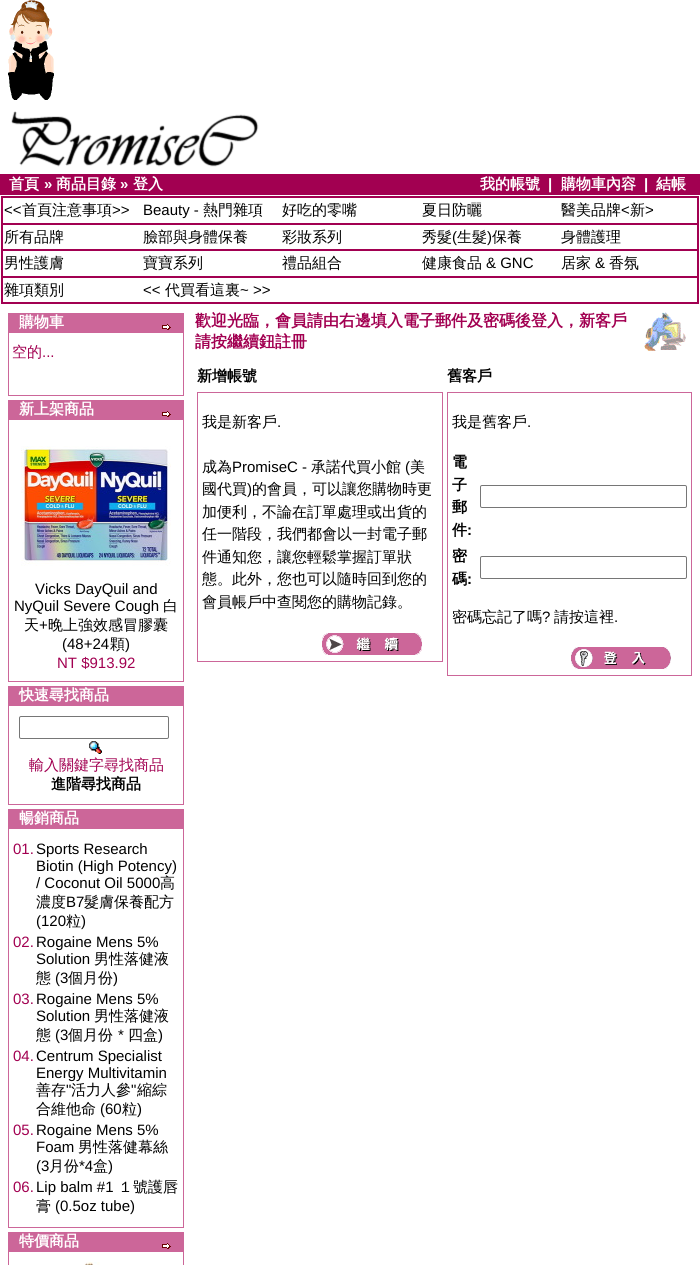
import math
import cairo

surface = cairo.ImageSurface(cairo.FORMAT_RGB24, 700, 1265)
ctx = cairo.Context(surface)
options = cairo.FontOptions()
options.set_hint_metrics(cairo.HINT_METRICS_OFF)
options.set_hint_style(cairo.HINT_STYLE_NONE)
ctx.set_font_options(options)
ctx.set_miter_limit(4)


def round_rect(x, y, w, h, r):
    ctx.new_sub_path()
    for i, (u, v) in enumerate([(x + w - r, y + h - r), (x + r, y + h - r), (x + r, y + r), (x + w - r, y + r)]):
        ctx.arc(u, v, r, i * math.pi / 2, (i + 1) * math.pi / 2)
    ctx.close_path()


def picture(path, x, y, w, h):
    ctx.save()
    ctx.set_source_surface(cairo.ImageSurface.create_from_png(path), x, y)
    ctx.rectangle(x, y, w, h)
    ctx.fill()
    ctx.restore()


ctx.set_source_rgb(1, 1, 1)
ctx.paint()
picture("img1.png", 8, 0, 46, 100)
picture("img2.png", 11, 111, 248, 56)
ctx.set_source_rgb(0.635, 0, 0.318)
ctx.rectangle(0, 174, 700, 21)
ctx.fill()
ctx.select_font_face("WenQuanYi Zen Hei", cairo.FONT_SLANT_NORMAL, cairo.FONT_WEIGHT_BOLD)
ctx.set_font_size(15)
ctx.set_source_rgb(1, 1, 1)
ctx.move_to(9, 189)
ctx.show_text("首頁")
ctx.select_font_face("Liberation Sans", cairo.FONT_SLANT_NORMAL, cairo.FONT_WEIGHT_BOLD)
ctx.move_to(44, 189)
ctx.show_text("»")
ctx.select_font_face("WenQuanYi Zen Hei", cairo.FONT_SLANT_NORMAL, cairo.FONT_WEIGHT_BOLD)
ctx.move_to(56, 189)
ctx.show_text("商品目錄")
ctx.select_font_face("Liberation Sans", cairo.FONT_SLANT_NORMAL, cairo.FONT_WEIGHT_BOLD)
ctx.move_to(120, 189)
ctx.show_text("»")
ctx.select_font_face("WenQuanYi Zen Hei", cairo.FONT_SLANT_NORMAL, cairo.FONT_WEIGHT_BOLD)
ctx.move_to(133, 189)
ctx.show_text("登入")
ctx.move_to(480, 189)
ctx.show_text("我的帳號")
ctx.select_font_face("Liberation Sans", cairo.FONT_SLANT_NORMAL, cairo.FONT_WEIGHT_BOLD)
ctx.move_to(548, 189)
ctx.show_text("|")
ctx.select_font_face("WenQuanYi Zen Hei", cairo.FONT_SLANT_NORMAL, cairo.FONT_WEIGHT_BOLD)
ctx.move_to(561, 189)
ctx.show_text("購物車內容")
ctx.select_font_face("Liberation Sans", cairo.FONT_SLANT_NORMAL, cairo.FONT_WEIGHT_BOLD)
ctx.move_to(644, 189)
ctx.show_text("|")
ctx.select_font_face("WenQuanYi Zen Hei", cairo.FONT_SLANT_NORMAL, cairo.FONT_WEIGHT_BOLD)
ctx.move_to(656, 189)
ctx.show_text("結帳")
ctx.set_source_rgb(0.635, 0, 0.318)
ctx.rectangle(1, 196, 698, 108)
ctx.fill()
ctx.set_source_rgb(1, 1, 1)
ctx.rectangle(3, 198, 694, 25)
ctx.fill()
ctx.select_font_face("Liberation Sans")
ctx.set_source_rgb(0, 0, 0)
ctx.move_to(4, 215)
ctx.show_text("<<")
ctx.select_font_face("WenQuanYi Zen Hei Medium")
ctx.move_to(22, 215)
ctx.show_text("首頁注意事項")
ctx.select_font_face("Liberation Sans")
ctx.move_to(112, 215)
ctx.show_text(">>")
ctx.move_to(143, 215)
ctx.show_text("Beauty -")
ctx.select_font_face("WenQuanYi Zen Hei Medium")
ctx.move_to(203, 215)
ctx.show_text("熱門雜項")
ctx.move_to(282, 215)
ctx.show_text("好吃的零嘴")
ctx.move_to(422, 215)
ctx.show_text("夏日防曬")
ctx.move_to(561, 215)
ctx.show_text("醫美品牌")
ctx.select_font_face("Liberation Sans")
ctx.move_to(621, 215)
ctx.show_text("<")
ctx.select_font_face("WenQuanYi Zen Hei Medium")
ctx.move_to(630, 215)
ctx.show_text("新")
ctx.select_font_face("Liberation Sans")
ctx.move_to(645, 215)
ctx.show_text(">")
ctx.set_source_rgb(1, 1, 1)
ctx.rectangle(3, 225, 694, 24)
ctx.fill()
ctx.select_font_face("WenQuanYi Zen Hei Medium")
ctx.set_source_rgb(0, 0, 0)
ctx.move_to(4, 242)
ctx.show_text("所有品牌")
ctx.move_to(143, 242)
ctx.show_text("臉部與身體保養")
ctx.move_to(282, 242)
ctx.show_text("彩妝系列")
ctx.move_to(422, 242)
ctx.show_text("秀髮")
ctx.select_font_face("Liberation Sans")
ctx.move_to(452, 242)
ctx.show_text("(")
ctx.select_font_face("WenQuanYi Zen Hei Medium")
ctx.move_to(457, 242)
ctx.show_text("生髮")
ctx.select_font_face("Liberation Sans")
ctx.move_to(487, 242)
ctx.show_text(")")
ctx.select_font_face("WenQuanYi Zen Hei Medium")
ctx.move_to(492, 242)
ctx.show_text("保養")
ctx.move_to(561, 242)
ctx.show_text("身體護理")
ctx.set_source_rgb(1, 1, 1)
ctx.rectangle(3, 251, 694, 25)
ctx.fill()
ctx.set_source_rgb(0, 0, 0)
ctx.move_to(4, 268)
ctx.show_text("男性護膚")
ctx.move_to(143, 268)
ctx.show_text("寶寶系列")
ctx.move_to(282, 268)
ctx.show_text("禮品組合")
ctx.move_to(422, 268)
ctx.show_text("健康食品")
ctx.select_font_face("Liberation Sans")
ctx.move_to(486, 268)
ctx.show_text("& GNC")
ctx.select_font_face("WenQuanYi Zen Hei Medium")
ctx.move_to(561, 268)
ctx.show_text("居家")
ctx.select_font_face("Liberation Sans")
ctx.move_to(595, 268)
ctx.show_text("&")
ctx.select_font_face("WenQuanYi Zen Hei Medium")
ctx.move_to(609, 268)
ctx.show_text("香氛")
ctx.set_source_rgb(1, 1, 1)
ctx.rectangle(3, 278, 694, 24)
ctx.fill()
ctx.set_source_rgb(0, 0, 0)
ctx.move_to(4, 295)
ctx.show_text("雜項類別")
ctx.select_font_face("Liberation Sans")
ctx.move_to(143, 295)
ctx.show_text("<<")
ctx.select_font_face("WenQuanYi Zen Hei Medium")
ctx.move_to(165, 295)
ctx.show_text("代買看這裏")
ctx.select_font_face("Liberation Sans")
ctx.move_to(240, 295)
ctx.show_text("~ >>")
ctx.set_source_rgb(0.8, 0.4, 0.6)
ctx.rectangle(8, 313, 176, 83)
ctx.fill()
ctx.select_font_face("WenQuanYi Zen Hei", cairo.FONT_SLANT_NORMAL, cairo.FONT_WEIGHT_BOLD)
ctx.set_source_rgb(1, 1, 1)
ctx.move_to(19, 327)
ctx.show_text("購物車")
picture("img3.png", 162, 324, 9, 6)
ctx.rectangle(9, 333, 174, 62)
ctx.fill()
ctx.select_font_face("WenQuanYi Zen Hei Medium")
ctx.set_source_rgb(0.635, 0, 0.318)
ctx.move_to(12, 357)
ctx.show_text("空的")
ctx.select_font_face("Liberation Sans")
ctx.move_to(42, 357)
ctx.show_text("...")
ctx.set_source_rgb(0.8, 0.4, 0.6)
ctx.rectangle(8, 400, 176, 282)
ctx.fill()
ctx.select_font_face("WenQuanYi Zen Hei", cairo.FONT_SLANT_NORMAL, cairo.FONT_WEIGHT_BOLD)
ctx.set_source_rgb(1, 1, 1)
ctx.move_to(19, 414)
ctx.show_text("新上架商品")
picture("img3.png", 162, 411, 9, 6)
ctx.rectangle(9, 420, 174, 261)
ctx.fill()
picture("img4.png", 21, 446, 150, 120)
ctx.select_font_face("Liberation Sans")
ctx.set_source_rgb(0, 0, 0)
ctx.move_to(35, 594)
ctx.show_text("Vicks DayQuil and")
ctx.move_to(14, 611)
ctx.show_text("NyQuil Severe Cough")
ctx.select_font_face("WenQuanYi Zen Hei Medium")
ctx.move_to(163, 611)
ctx.show_text("白")
ctx.move_to(24, 630)
ctx.show_text("天")
ctx.select_font_face("Liberation Sans")
ctx.move_to(39, 630)
ctx.show_text("+")
ctx.select_font_face("WenQuanYi Zen Hei Medium")
ctx.move_to(48, 630)
ctx.show_text("晚上強效感冒膠囊")
ctx.select_font_face("Liberation Sans")
ctx.move_to(62, 649)
ctx.show_text("(48+24")
ctx.select_font_face("WenQuanYi Zen Hei Medium")
ctx.move_to(110, 649)
ctx.show_text("顆")
ctx.select_font_face("Liberation Sans")
ctx.move_to(125, 649)
ctx.show_text(")")
ctx.set_source_rgb(0.635, 0, 0.318)
ctx.move_to(57, 668)
ctx.show_text("NT $913.92")
ctx.set_source_rgb(0.8, 0.4, 0.6)
ctx.rectangle(8, 686, 176, 119)
ctx.fill()
ctx.select_font_face("WenQuanYi Zen Hei", cairo.FONT_SLANT_NORMAL, cairo.FONT_WEIGHT_BOLD)
ctx.set_source_rgb(1, 1, 1)
ctx.move_to(19, 700)
ctx.show_text("快速尋找商品")
ctx.rectangle(9, 706, 174, 98)
ctx.fill()
round_rect(19.5, 716.5, 149, 22, 1.5)
ctx.set_source_rgb(0.463, 0.463, 0.463)
ctx.set_line_width(1)
ctx.stroke()
picture("img5.png", 89, 741, 13, 13)
ctx.select_font_face("WenQuanYi Zen Hei Medium")
ctx.set_source_rgb(0.635, 0, 0.318)
ctx.move_to(29, 770)
ctx.show_text("輸入關鍵字尋找商品")
ctx.select_font_face("WenQuanYi Zen Hei", cairo.FONT_SLANT_NORMAL, cairo.FONT_WEIGHT_BOLD)
ctx.set_source_rgb(0, 0, 0)
ctx.move_to(51, 789)
ctx.show_text("進階尋找商品")
ctx.set_source_rgb(0.8, 0.4, 0.6)
ctx.rectangle(8, 809, 176, 419)
ctx.fill()
ctx.set_source_rgb(1, 1, 1)
ctx.move_to(19, 823)
ctx.show_text("暢銷商品")
ctx.rectangle(9, 829, 174, 398)
ctx.fill()
ctx.select_font_face("Liberation Sans")
ctx.set_source_rgb(0.635, 0, 0.318)
ctx.move_to(13, 854)
ctx.show_text("01.")
ctx.set_source_rgb(0, 0, 0)
ctx.move_to(36, 854)
ctx.show_text("Sports Research")
ctx.move_to(36, 871)
ctx.show_text("Biotin (High Potency)")
ctx.move_to(36, 888)
ctx.show_text("/ Coconut Oil 5000")
ctx.select_font_face("WenQuanYi Zen Hei Medium")
ctx.move_to(160, 888)
ctx.show_text("高")
ctx.move_to(36, 907)
ctx.show_text("濃度")
ctx.select_font_face("Liberation Sans")
ctx.move_to(66, 907)
ctx.show_text("B7")
ctx.select_font_face("WenQuanYi Zen Hei Medium")
ctx.move_to(84, 907)
ctx.show_text("髮膚保養配方")
ctx.select_font_face("Liberation Sans")
ctx.move_to(36, 926)
ctx.show_text("(120")
ctx.select_font_face("WenQuanYi Zen Hei Medium")
ctx.move_to(66, 926)
ctx.show_text("粒")
ctx.select_font_face("Liberation Sans")
ctx.move_to(81, 926)
ctx.show_text(")")
ctx.set_source_rgb(0.635, 0, 0.318)
ctx.move_to(13, 947)
ctx.show_text("02.")
ctx.set_source_rgb(0, 0, 0)
ctx.move_to(36, 947)
ctx.show_text("Rogaine Mens 5%")
ctx.move_to(36, 964)
ctx.show_text("Solution")
ctx.select_font_face("WenQuanYi Zen Hei Medium")
ctx.move_to(94, 964)
ctx.show_text("男性落健液")
ctx.move_to(36, 983)
ctx.show_text("態")
ctx.select_font_face("Liberation Sans")
ctx.move_to(55, 983)
ctx.show_text("(3")
ctx.select_font_face("WenQuanYi Zen Hei Medium")
ctx.move_to(68, 983)
ctx.show_text("個月份")
ctx.select_font_face("Liberation Sans")
ctx.move_to(113, 983)
ctx.show_text(")")
ctx.set_source_rgb(0.635, 0, 0.318)
ctx.move_to(13, 1004)
ctx.show_text("03.")
ctx.set_source_rgb(0, 0, 0)
ctx.move_to(36, 1004)
ctx.show_text("Rogaine Mens 5%")
ctx.move_to(36, 1021)
ctx.show_text("Solution")
ctx.select_font_face("WenQuanYi Zen Hei Medium")
ctx.move_to(94, 1021)
ctx.show_text("男性落健液")
ctx.move_to(36, 1040)
ctx.show_text("態")
ctx.select_font_face("Liberation Sans")
ctx.move_to(55, 1040)
ctx.show_text("(3")
ctx.select_font_face("WenQuanYi Zen Hei Medium")
ctx.move_to(68, 1040)
ctx.show_text("個月份")
ctx.select_font_face("Liberation Sans")
ctx.move_to(118, 1040)
ctx.show_text("*")
ctx.select_font_face("WenQuanYi Zen Hei Medium")
ctx.move_to(128, 1040)
ctx.show_text("四盒")
ctx.select_font_face("Liberation Sans")
ctx.move_to(158, 1040)
ctx.show_text(")")
ctx.set_source_rgb(0.635, 0, 0.318)
ctx.move_to(13, 1061)
ctx.show_text("04.")
ctx.set_source_rgb(0, 0, 0)
ctx.move_to(36, 1061)
ctx.show_text("Centrum Specialist")
ctx.move_to(36, 1078)
ctx.show_text("Energy Multivitamin")
ctx.select_font_face("WenQuanYi Zen Hei Medium")
ctx.move_to(36, 1095)
ctx.show_text("善存")
ctx.select_font_face("Liberation Sans")
ctx.move_to(66, 1095)
ctx.show_text("\"")
ctx.select_font_face("WenQuanYi Zen Hei Medium")
ctx.move_to(71, 1095)
ctx.show_text("活力人參")
ctx.select_font_face("Liberation Sans")
ctx.move_to(131, 1095)
ctx.show_text("\"")
ctx.select_font_face("WenQuanYi Zen Hei Medium")
ctx.move_to(137, 1095)
ctx.show_text("縮綜")
ctx.move_to(36, 1114)
ctx.show_text("合維他命")
ctx.select_font_face("Liberation Sans")
ctx.move_to(100, 1114)
ctx.show_text("(60")
ctx.select_font_face("WenQuanYi Zen Hei Medium")
ctx.move_to(122, 1114)
ctx.show_text("粒")
ctx.select_font_face("Liberation Sans")
ctx.move_to(137, 1114)
ctx.show_text(")")
ctx.set_source_rgb(0.635, 0, 0.318)
ctx.move_to(13, 1135)
ctx.show_text("05.")
ctx.set_source_rgb(0, 0, 0)
ctx.move_to(36, 1135)
ctx.show_text("Rogaine Mens 5%")
ctx.move_to(36, 1152)
ctx.show_text("Foam")
ctx.select_font_face("WenQuanYi Zen Hei Medium")
ctx.move_to(78, 1152)
ctx.show_text("男性落健幕絲")
ctx.select_font_face("Liberation Sans")
ctx.move_to(36, 1171)
ctx.show_text("(3")
ctx.select_font_face("WenQuanYi Zen Hei Medium")
ctx.move_to(49, 1171)
ctx.show_text("月份")
ctx.select_font_face("Liberation Sans")
ctx.move_to(79, 1171)
ctx.show_text("*4")
ctx.select_font_face("WenQuanYi Zen Hei Medium")
ctx.move_to(93, 1171)
ctx.show_text("盒")
ctx.select_font_face("Liberation Sans")
ctx.move_to(108, 1171)
ctx.show_text(")")
ctx.set_source_rgb(0.635, 0, 0.318)
ctx.move_to(13, 1192)
ctx.show_text("06.")
ctx.set_source_rgb(0, 0, 0)
ctx.move_to(36, 1192)
ctx.show_text("Lip balm #1")
ctx.select_font_face("WenQuanYi Zen Hei Medium")
ctx.move_to(118, 1192)
ctx.show_text("１號護唇")
ctx.move_to(36, 1211)
ctx.show_text("膏")
ctx.select_font_face("Liberation Sans")
ctx.move_to(55, 1211)
ctx.show_text("(0.5oz tube)")
ctx.set_source_rgb(0.8, 0.4, 0.6)
ctx.rectangle(8, 1232, 176, 33)
ctx.fill()
ctx.select_font_face("WenQuanYi Zen Hei", cairo.FONT_SLANT_NORMAL, cairo.FONT_WEIGHT_BOLD)
ctx.set_source_rgb(1, 1, 1)
ctx.move_to(19, 1246)
ctx.show_text("特價商品")
picture("img3.png", 162, 1243, 9, 6)
ctx.rectangle(9, 1252, 174, 13)
ctx.fill()
picture("img6.png", 84, 1262, 16, 3)
ctx.set_font_size(16)
ctx.set_source_rgb(0.635, 0, 0.318)
ctx.move_to(195, 326)
ctx.show_text("歡迎光臨，會員請由右邊填入電子郵件及密碼後登入，新客戶")
ctx.move_to(195, 347)
ctx.show_text("請按繼續鈕註冊")
picture("img7.png", 644, 312, 42, 39)
ctx.set_font_size(15)
ctx.set_source_rgb(0, 0, 0)
ctx.move_to(197, 381)
ctx.show_text("新增帳號")
ctx.move_to(447, 381)
ctx.show_text("舊客戶")
ctx.set_source_rgb(0.8, 0.4, 0.6)
ctx.rectangle(197, 392, 246, 270)
ctx.fill()
ctx.set_source_rgb(1, 1, 1)
ctx.rectangle(198, 393, 244, 268)
ctx.fill()
ctx.select_font_face("WenQuanYi Zen Hei Medium")
ctx.set_source_rgb(0, 0, 0)
ctx.move_to(202, 427)
ctx.show_text("我是新客戶")
ctx.select_font_face("Liberation Sans")
ctx.move_to(277, 427)
ctx.show_text(".")
ctx.select_font_face("WenQuanYi Zen Hei Medium")
ctx.move_to(202, 472)
ctx.show_text("成為")
ctx.select_font_face("Liberation Sans")
ctx.move_to(232, 472)
ctx.show_text("PromiseC -")
ctx.select_font_face("WenQuanYi Zen Hei Medium")
ctx.move_to(311, 472)
ctx.show_text("承諾代買小館")
ctx.select_font_face("Liberation Sans")
ctx.move_to(405, 472)
ctx.show_text("(")
ctx.select_font_face("WenQuanYi Zen Hei Medium")
ctx.move_to(410, 472)
ctx.show_text("美")
ctx.move_to(202, 494)
ctx.show_text("國代買")
ctx.select_font_face("Liberation Sans")
ctx.move_to(247, 494)
ctx.show_text(")")
ctx.select_font_face("WenQuanYi Zen Hei Medium")
ctx.move_to(252, 494)
ctx.show_text("的會員，可以讓您購物時更")
ctx.move_to(202, 517)
ctx.show_text("加便利，不論在訂單處理或出貨的")
ctx.move_to(202, 539)
ctx.show_text("任一階段，我們都會以一封電子郵")
ctx.move_to(202, 562)
ctx.show_text("件通知您，讓您輕鬆掌握訂單狀")
ctx.move_to(202, 584)
ctx.show_text("態。此外，您也可以隨時回到您的")
ctx.move_to(202, 607)
ctx.show_text("會員帳戶中查閱您的購物記錄。")
picture("img8.png", 322, 633, 100, 22)
ctx.set_source_rgb(0.8, 0.4, 0.6)
ctx.rectangle(447, 392, 245, 284)
ctx.fill()
ctx.set_source_rgb(1, 1, 1)
ctx.rectangle(448, 393, 243, 282)
ctx.fill()
ctx.set_source_rgb(0, 0, 0)
ctx.move_to(452, 427)
ctx.show_text("我是舊客戶")
ctx.select_font_face("Liberation Sans")
ctx.move_to(527, 427)
ctx.show_text(".")
ctx.select_font_face("WenQuanYi Zen Hei", cairo.FONT_SLANT_NORMAL, cairo.FONT_WEIGHT_BOLD)
ctx.move_to(452, 467)
ctx.show_text("電")
ctx.move_to(452, 490)
ctx.show_text("子")
ctx.move_to(452, 512)
ctx.show_text("郵")
ctx.move_to(452, 535)
ctx.show_text("件")
ctx.select_font_face("Liberation Sans", cairo.FONT_SLANT_NORMAL, cairo.FONT_WEIGHT_BOLD)
ctx.move_to(467, 535)
ctx.show_text(":")
round_rect(480.5, 485.5, 206, 22, 1.5)
ctx.set_source_rgb(0.463, 0.463, 0.463)
ctx.stroke()
ctx.select_font_face("WenQuanYi Zen Hei", cairo.FONT_SLANT_NORMAL, cairo.FONT_WEIGHT_BOLD)
ctx.set_source_rgb(0, 0, 0)
ctx.move_to(452, 561)
ctx.show_text("密")
ctx.move_to(452, 584)
ctx.show_text("碼")
ctx.select_font_face("Liberation Sans", cairo.FONT_SLANT_NORMAL, cairo.FONT_WEIGHT_BOLD)
ctx.move_to(467, 584)
ctx.show_text(":")
round_rect(480.5, 556.5, 206, 22, 1.5)
ctx.set_source_rgb(0.463, 0.463, 0.463)
ctx.stroke()
ctx.select_font_face("WenQuanYi Zen Hei Medium")
ctx.set_source_rgb(0, 0, 0)
ctx.move_to(452, 622)
ctx.show_text("密碼忘記了嗎")
ctx.select_font_face("Liberation Sans")
ctx.move_to(542, 622)
ctx.show_text("?")
ctx.select_font_face("WenQuanYi Zen Hei Medium")
ctx.move_to(554, 622)
ctx.show_text("請按這裡")
ctx.select_font_face("Liberation Sans")
ctx.move_to(614, 622)
ctx.show_text(".")
picture("img9.png", 571, 647, 100, 22)
surface.write_to_png("page.png")
